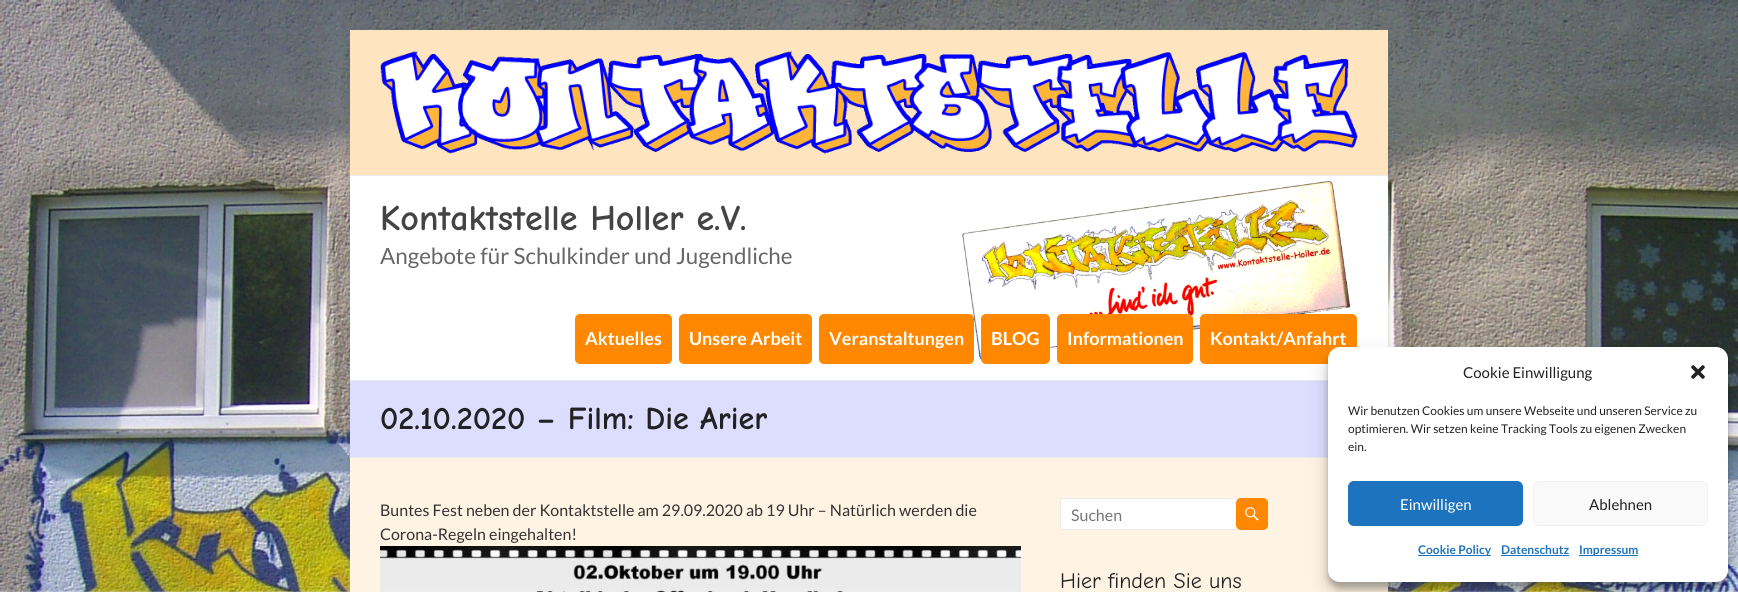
import math
import cairo

surface = cairo.ImageSurface(cairo.FORMAT_RGB24, 1738, 592)
ctx = cairo.Context(surface)
options = cairo.FontOptions()
options.set_hint_metrics(cairo.HINT_METRICS_OFF)
options.set_hint_style(cairo.HINT_STYLE_NONE)
ctx.set_font_options(options)
ctx.set_miter_limit(4)


def round_rect(x, y, w, h, r):
    ctx.new_sub_path()
    for i, (u, v) in enumerate([(x + w - r, y + h - r), (x + r, y + h - r), (x + r, y + r), (x + w - r, y + r)]):
        ctx.arc(u, v, r, i * math.pi / 2, (i + 1) * math.pi / 2)
    ctx.close_path()


def shadow(x, y, w, h, r, blur, alpha):
    ctx.push_group_with_content(cairo.CONTENT_ALPHA)
    ctx.set_operator(cairo.OPERATOR_SOURCE)
    for i in range(15, -16, -2):
        e = blur * i / 6
        if min(w, h) + 2 * e > 0:
            ctx.set_source_rgba(0, 0, 0, alpha * math.erfc((i - 1) / 8.5) / 2)
            round_rect(x - e, y - e, w + 2 * e, h + 2 * e, max(0, min(r + e + blur * .6, min(w, h) / 2 + e)))
            ctx.fill()
    ctx.mask(ctx.pop_group())


def picture(path, x, y, w, h):
    ctx.save()
    ctx.set_source_surface(cairo.ImageSurface.create_from_png(path), x, y)
    ctx.rectangle(x, y, w, h)
    ctx.fill()
    ctx.restore()


ctx.set_source_rgb(1, 1, 1)
ctx.paint()
picture("img1.png", 0, 0, 1738, 592)
ctx.set_source_rgb(0.392, 0.392, 0.392)
shadow(350, 32, 1038, 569, 0, 3, 0.3)
ctx.set_source_rgb(1, 1, 1)
ctx.rectangle(350, 176, 1038, 204)
ctx.fill()
ctx.set_source_rgb(1, 0.898, 0.749)
ctx.rectangle(350, 30, 1038, 145)
ctx.fill()
picture("img2.png", 380, 51, 978, 103)
ctx.set_source_rgb(0.918, 0.918, 0.918)
ctx.rectangle(350, 175, 1038, 1)
ctx.fill()
ctx.rectangle(350, 380, 978, 1)
ctx.fill()
ctx.select_font_face("Comic Neue", cairo.FONT_SLANT_NORMAL, cairo.FONT_WEIGHT_BOLD)
ctx.set_font_size(36)
ctx.set_source_rgb(0.267, 0.267, 0.267)
ctx.move_to(380, 230)
ctx.show_text("Kontaktstelle Holler e.V.")
ctx.select_font_face("Lato")
ctx.set_font_size(22.4)
ctx.set_source_rgb(0.4, 0.4, 0.4)
ctx.move_to(380, 264)
ctx.show_text("Angebote für Schulkinder und Jugendliche")
picture("img3.png", 962, 181, 389, 179)
ctx.set_source_rgb(1, 0.533, 0)
round_rect(575, 314, 97, 50, 5)
ctx.fill()
ctx.select_font_face("Lato", cairo.FONT_SLANT_NORMAL, cairo.FONT_WEIGHT_BOLD)
ctx.set_font_size(18)
ctx.set_source_rgb(1, 1, 1)
ctx.move_to(585, 345)
ctx.show_text("Aktuelles")
ctx.set_source_rgb(1, 0.533, 0)
round_rect(679, 314, 133, 50, 5)
ctx.fill()
ctx.set_source_rgb(1, 1, 1)
ctx.move_to(689, 345)
ctx.show_text("Unsere Arbeit")
ctx.set_source_rgb(1, 0.533, 0)
round_rect(819, 314, 155, 50, 5)
ctx.fill()
ctx.set_source_rgb(1, 1, 1)
ctx.move_to(829, 345)
ctx.show_text("Veranstaltungen")
ctx.set_source_rgb(1, 0.533, 0)
round_rect(981, 314, 69, 50, 5)
ctx.fill()
ctx.set_source_rgb(1, 1, 1)
ctx.move_to(991, 345)
ctx.show_text("BLOG")
ctx.set_source_rgb(1, 0.533, 0)
round_rect(1057, 314, 136, 50, 5)
ctx.fill()
ctx.set_source_rgb(1, 1, 1)
ctx.move_to(1067, 345)
ctx.show_text("Informationen")
ctx.set_source_rgb(1, 0.533, 0)
round_rect(1200, 314, 157, 50, 5)
ctx.fill()
ctx.set_source_rgb(1, 1, 1)
ctx.move_to(1210, 345)
ctx.show_text("Kontakt/Anfahrt")
ctx.set_source_rgb(0.867, 0.871, 1)
ctx.rectangle(350, 381, 978, 76)
ctx.fill()
ctx.set_source_rgb(0.918, 0.918, 0.918)
ctx.rectangle(350, 457, 978, 1)
ctx.fill()
ctx.select_font_face("Comic Neue", cairo.FONT_SLANT_NORMAL, cairo.FONT_WEIGHT_BOLD)
ctx.set_font_size(32)
ctx.set_source_rgb(0.133, 0.133, 0.133)
ctx.move_to(380, 429)
ctx.show_text("02.10.2020 – Film: Die Arier")
ctx.set_source_rgb(1, 0.953, 0.89)
ctx.rectangle(350, 458, 1038, 134)
ctx.fill()
ctx.select_font_face("Lato")
ctx.set_font_size(16)
ctx.set_source_rgb(0.2, 0.2, 0.2)
ctx.move_to(380, 516)
ctx.show_text("Buntes Fest neben der Kontaktstelle am 29.09.2020 ab 19 Uhr – Natürlich werden die")
ctx.move_to(380, 540)
ctx.show_text("Corona-Regeln eingehalten!")
picture("img4.png", 380, 546, 641, 46)
ctx.set_source_rgb(1, 1, 1)
round_rect(1060.5, 498.5, 178, 31, 2.5)
ctx.fill_preserve()
ctx.set_source_rgb(0.918, 0.918, 0.918)
ctx.set_line_width(1)
ctx.stroke()
ctx.set_source_rgb(0.459, 0.459, 0.459)
ctx.move_to(1071, 521)
ctx.show_text("Suchen")
ctx.set_source_rgb(1, 0.533, 0)
round_rect(1236, 498, 32, 32, 5)
ctx.fill()
picture("img5.png", 1245, 507, 14, 14)
ctx.select_font_face("Comic Neue")
ctx.set_font_size(22)
ctx.set_source_rgb(0.133, 0.133, 0.133)
ctx.move_to(1060, 588)
ctx.show_text("Hier finden Sie uns")
ctx.set_source_rgb(0, 0, 0)
shadow(1328, 353, 400, 235, 12, 3, 0.23)
shadow(1328, 357, 400, 235, 12, 10, 0.19)
ctx.set_source_rgb(1, 1, 1)
round_rect(1328, 347, 400, 235, 12)
ctx.fill()
ctx.select_font_face("Lato")
ctx.set_font_size(15)
ctx.set_source_rgb(0.133, 0.133, 0.133)
ctx.move_to(1463, 378)
ctx.show_text("Cookie Einwilligung")
picture("img6.png", 1691, 365, 14, 14)
ctx.set_font_size(12)
ctx.move_to(1348, 415)
ctx.show_text("Wir benutzen Cookies um unsere Webseite und unseren Service zu")
ctx.move_to(1348, 433)
ctx.show_text("optimieren. Wir setzen keine Tracking Tools zu eigenen Zwecken")
ctx.move_to(1348, 451)
ctx.show_text("ein.")
ctx.set_source_rgb(0.118, 0.451, 0.745)
round_rect(1348.5, 481.5, 174, 44, 5.5)
ctx.fill_preserve()
ctx.stroke()
ctx.set_font_size(15)
ctx.set_source_rgb(1, 1, 1)
ctx.move_to(1400, 510)
ctx.show_text("Einwilligen")
ctx.set_source_rgb(0.976, 0.976, 0.976)
round_rect(1533.5, 481.5, 174, 44, 5.5)
ctx.fill_preserve()
ctx.set_source_rgb(0.949, 0.949, 0.949)
ctx.stroke()
ctx.set_source_rgb(0.133, 0.133, 0.133)
ctx.move_to(1589, 510)
ctx.show_text("Ablehnen")
ctx.set_source_rgb(0.118, 0.451, 0.745)
ctx.rectangle(1418, 555, 73, 1)
ctx.fill()
ctx.select_font_face("Lato", cairo.FONT_SLANT_NORMAL, cairo.FONT_WEIGHT_BOLD)
ctx.set_font_size(12)
ctx.move_to(1418, 554)
ctx.show_text("Cookie Policy")
ctx.move_to(1501, 554)
ctx.show_text("Datenschutz")
ctx.rectangle(1501, 555, 68, 1)
ctx.fill()
ctx.rectangle(1579, 555, 59, 1)
ctx.fill()
ctx.move_to(1579, 554)
ctx.show_text("Impressum")
surface.write_to_png("page.png")
